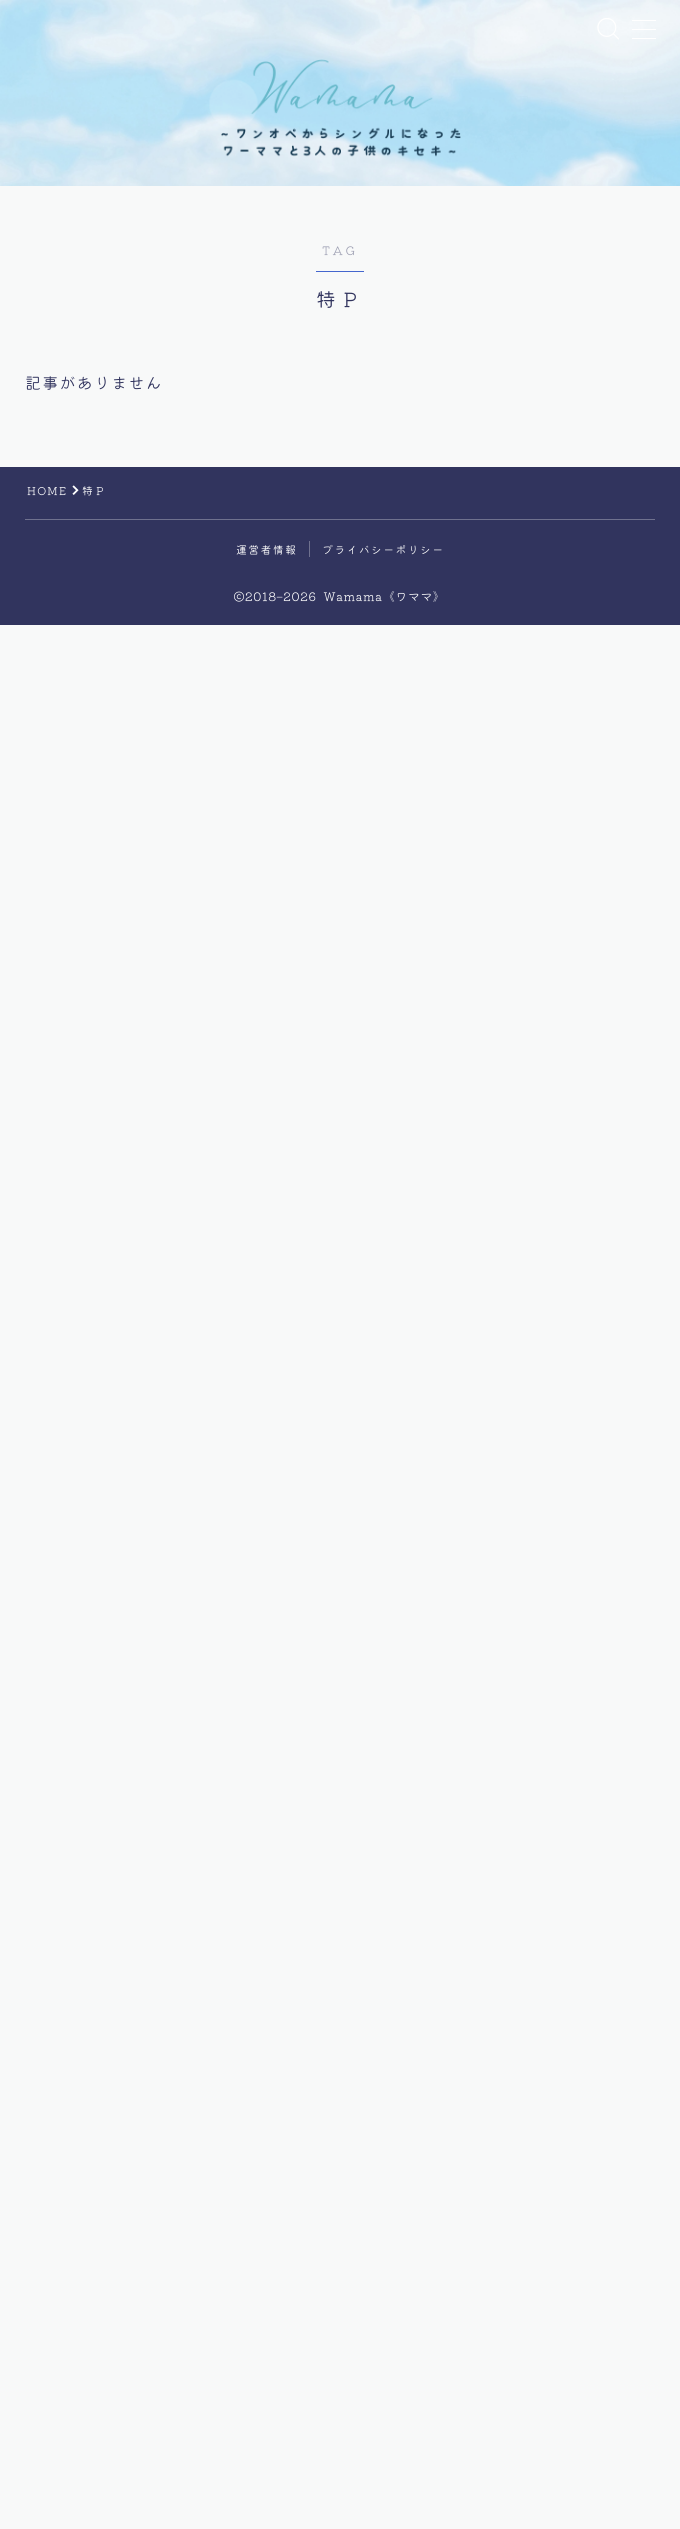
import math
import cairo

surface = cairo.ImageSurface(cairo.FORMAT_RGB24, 680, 2529)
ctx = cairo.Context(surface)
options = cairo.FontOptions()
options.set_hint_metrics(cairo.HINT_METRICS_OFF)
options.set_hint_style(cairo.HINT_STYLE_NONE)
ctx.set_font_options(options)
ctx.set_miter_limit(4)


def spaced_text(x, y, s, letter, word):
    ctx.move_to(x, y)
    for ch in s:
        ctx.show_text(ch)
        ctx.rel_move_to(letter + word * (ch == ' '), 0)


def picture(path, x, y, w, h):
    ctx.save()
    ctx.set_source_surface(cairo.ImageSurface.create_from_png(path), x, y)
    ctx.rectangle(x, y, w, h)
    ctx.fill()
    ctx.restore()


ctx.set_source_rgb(0.969, 0.976, 0.976)
ctx.paint()
picture("img1.png", 0, 0, 680, 186)
picture("img2.png", 597, 18, 22, 22)
ctx.set_source_rgb(1, 1, 1)
ctx.rectangle(632, 20, 24, 1)
ctx.fill()
ctx.rectangle(632, 29, 24, 1)
ctx.fill()
ctx.rectangle(632, 38, 24, 1)
ctx.fill()
picture("img3.png", 209, 59, 252, 98)
ctx.select_font_face("Kiwi Maru Light")
ctx.set_font_size(12)
ctx.set_source_rgb(0.62, 0.627, 0.702)
spaced_text(322, 255, "TAG", 2.5, 0)
ctx.set_source_rgb(0.267, 0.4, 0.808)
ctx.rectangle(316, 271, 48, 1)
ctx.fill()
ctx.set_font_size(20)
ctx.set_source_rgb(0.192, 0.204, 0.369)
spaced_text(316, 307, "特Ｐ", 4, 0)
ctx.set_font_size(16)
spaced_text(25, 389, "記事がありません", 1.25, 0)
ctx.rectangle(0, 467, 680, 158)
ctx.fill()
ctx.set_font_size(11)
ctx.set_source_rgb(1, 1, 1)
spaced_text(27, 495, "HOME", 1.25, 0)
picture("img4.png", 72, 485, 7, 10)
spaced_text(82, 495, "特Ｐ", 1.25, 0)
ctx.set_source_rgb(0.435, 0.443, 0.557)
ctx.rectangle(25, 519, 630, 1)
ctx.fill()
ctx.set_source_rgb(1, 1, 1)
spaced_text(236, 554, "運営者情報", 1.25, 0)
ctx.set_source_rgb(0.435, 0.443, 0.557)
ctx.rectangle(309, 541, 1, 16)
ctx.fill()
ctx.set_source_rgb(1, 1, 1)
spaced_text(322, 554, "プライバシーポリシー", 1.25, 0)
picture("img5.png", 234, 591, 10, 11)
ctx.set_font_size(12)
spaced_text(245, 601, "2018–2026  Wamama《ワママ》", 0.6, 0)
surface.write_to_png("page.png")
